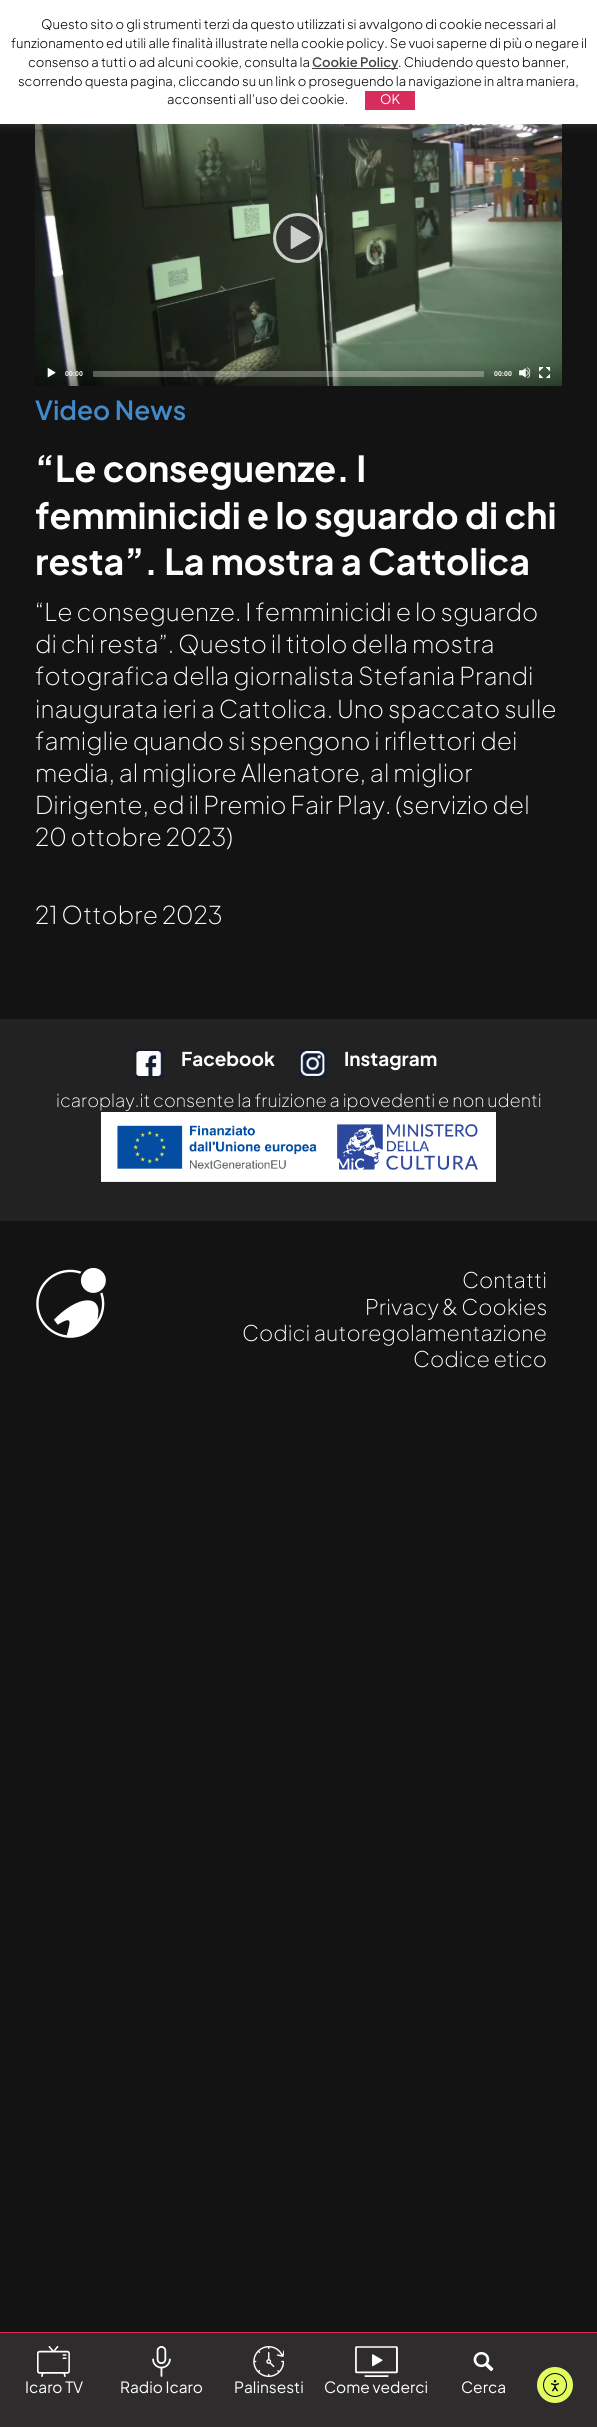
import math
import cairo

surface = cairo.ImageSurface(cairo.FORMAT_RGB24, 597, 2427)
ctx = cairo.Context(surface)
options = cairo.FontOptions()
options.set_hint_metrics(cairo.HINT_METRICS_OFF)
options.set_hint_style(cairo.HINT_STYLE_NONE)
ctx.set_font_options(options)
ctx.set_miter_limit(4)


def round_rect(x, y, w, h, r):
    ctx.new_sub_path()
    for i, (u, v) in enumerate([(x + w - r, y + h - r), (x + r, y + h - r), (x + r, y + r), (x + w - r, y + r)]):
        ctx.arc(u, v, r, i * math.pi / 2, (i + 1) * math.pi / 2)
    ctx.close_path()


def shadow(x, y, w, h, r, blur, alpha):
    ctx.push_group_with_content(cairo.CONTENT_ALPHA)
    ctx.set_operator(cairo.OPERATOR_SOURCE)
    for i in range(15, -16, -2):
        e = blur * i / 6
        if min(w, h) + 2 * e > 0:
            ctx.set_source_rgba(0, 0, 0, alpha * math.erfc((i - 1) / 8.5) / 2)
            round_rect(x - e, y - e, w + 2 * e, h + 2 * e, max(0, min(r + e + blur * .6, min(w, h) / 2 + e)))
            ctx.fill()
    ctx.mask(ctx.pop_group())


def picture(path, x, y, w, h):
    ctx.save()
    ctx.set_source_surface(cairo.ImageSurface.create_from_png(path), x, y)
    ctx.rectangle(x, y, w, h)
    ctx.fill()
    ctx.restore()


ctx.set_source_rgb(0.075, 0.075, 0.075)
ctx.paint()
picture("img1.png", 35, 124, 527, 262)
ctx.set_source_rgb(0.675, 0.671, 0.671)
shadow(0, -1, 597, 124, 0, 5, 0.3)
ctx.set_source_rgb(1, 1, 1)
ctx.rectangle(0, 0, 597, 124)
ctx.fill()
ctx.select_font_face("Plus Jakarta Sans Light")
ctx.set_font_size(13)
ctx.set_source_rgb(0, 0, 0)
ctx.move_to(41, 29)
ctx.show_text("Questo sito o gli strumenti terzi da questo utilizzati si avvalgono di cookie necessari al")
ctx.move_to(11, 48)
ctx.show_text("funzionamento ed utili alle finalità illustrate nella cookie policy. Se vuoi saperne di più o negare il")
ctx.move_to(28, 67)
ctx.show_text("consenso a tutti o ad alcuni cookie, consulta la")
ctx.set_source_rgb(0.267, 0.267, 0.267)
ctx.rectangle(312, 68, 86, 1)
ctx.fill()
ctx.select_font_face("Plus Jakarta Sans SemiBold")
ctx.move_to(312, 67)
ctx.show_text("Cookie Policy")
ctx.select_font_face("Plus Jakarta Sans Light")
ctx.set_source_rgb(0, 0, 0)
ctx.move_to(398, 67)
ctx.show_text(". Chiudendo questo banner,")
ctx.move_to(18, 86)
ctx.show_text("scorrendo questa pagina, cliccando su un link o proseguendo la navigazione in altra maniera,")
ctx.move_to(167, 104)
ctx.show_text("acconsenti all’uso dei cookie.")
ctx.set_source_rgb(0.843, 0.173, 0.361)
ctx.rectangle(365, 91, 50, 19)
ctx.fill()
ctx.select_font_face("Plus Jakarta Sans")
ctx.set_source_rgb(1, 1, 1)
ctx.move_to(380, 104)
ctx.show_text("OK")
picture("img2.png", 273, 213, 50, 50)
picture("img3.png", 47, 367, 9, 11)
ctx.select_font_face("Liberation Sans", cairo.FONT_SLANT_NORMAL, cairo.FONT_WEIGHT_BOLD)
ctx.set_font_size(7)
ctx.move_to(65, 376)
ctx.show_text("00:00")
ctx.set_source_rgba(1, 1, 1, 0.3)
round_rect(93, 371, 391, 6, 1)
ctx.fill()
ctx.set_source_rgb(1, 1, 1)
ctx.move_to(494, 376)
ctx.show_text("00:00")
picture("img4.png", 519, 367, 12, 12)
picture("img5.png", 539, 367, 12, 12)
ctx.select_font_face("Plus Jakarta Sans SemiBold")
ctx.set_font_size(26.25)
ctx.set_source_rgb(0.259, 0.545, 0.792)
ctx.move_to(35, 420)
ctx.show_text("Video News")
ctx.select_font_face("Plus Jakarta Sans", cairo.FONT_SLANT_NORMAL, cairo.FONT_WEIGHT_BOLD)
ctx.set_font_size(35.8)
ctx.set_source_rgb(1, 1, 1)
ctx.move_to(35, 482)
ctx.show_text("“Le conseguenze. I")
ctx.move_to(35, 529)
ctx.show_text("femminicidi e lo sguardo di chi")
ctx.move_to(35, 575)
ctx.show_text("resta”. La mostra a Cattolica")
ctx.select_font_face("Plus Jakarta Sans ExtraLight")
ctx.set_font_size(24.5)
ctx.move_to(35, 621)
ctx.show_text("“Le conseguenze. I femminicidi e lo sguardo")
ctx.move_to(35, 653)
ctx.show_text("di chi resta”. Questo il titolo della mostra")
ctx.move_to(35, 685)
ctx.show_text("fotografica della giornalista Stefania Prandi")
ctx.move_to(35, 718)
ctx.show_text("inaugurata ieri a Cattolica. Uno spaccato sulle")
ctx.move_to(35, 750)
ctx.show_text("famiglie quando si spengono i riflettori dei")
ctx.move_to(35, 782)
ctx.show_text("media, al migliore Allenatore, al miglior")
ctx.move_to(35, 814)
ctx.show_text("Dirigente, ed il Premio Fair Play. (servizio del")
ctx.move_to(35, 846)
ctx.show_text("20 ottobre 2023)")
ctx.move_to(35, 924)
ctx.show_text("21 Ottobre 2023")
ctx.set_source_rgb(0.133, 0.133, 0.133)
ctx.rectangle(0, 1019, 597, 202)
ctx.fill()
picture("img6.png", 135, 1049, 29, 29)
ctx.select_font_face("Plus Jakarta Sans", cairo.FONT_SLANT_NORMAL, cairo.FONT_WEIGHT_BOLD)
ctx.set_font_size(19)
ctx.set_source_rgb(1, 1, 1)
ctx.move_to(181, 1066)
ctx.show_text("Facebook")
picture("img7.png", 299, 1049, 28, 29)
ctx.move_to(344, 1066)
ctx.show_text("Instagram")
ctx.select_font_face("Plus Jakarta Sans ExtraLight")
ctx.set_font_size(17.9)
ctx.move_to(56, 1107)
ctx.show_text("icaroplay.it consente la fruizione a ipovedenti e non udenti")
picture("img8.png", 101, 1112, 395, 70)
picture("img9.png", 36, 1267, 70, 71)
ctx.set_font_size(21.5)
ctx.move_to(462, 1288)
ctx.show_text("Contatti")
ctx.move_to(365, 1315)
ctx.show_text("Privacy & Cookies")
ctx.move_to(242, 1341)
ctx.show_text("Codici autoregolamentazione")
ctx.move_to(413, 1367)
ctx.show_text("Codice etico")
ctx.set_source_rgb(0.18, 0.173, 0.176)
ctx.rectangle(0, 2333, 597, 94)
ctx.fill()
ctx.set_source_rgb(0.847, 0.18, 0.314)
ctx.rectangle(0, 2332, 597, 1)
ctx.fill()
picture("img10.png", 37, 2346, 33, 31)
ctx.select_font_face("Plus Jakarta Sans")
ctx.set_font_size(15.5)
ctx.set_source_rgb(1, 1, 1)
ctx.move_to(25, 2393)
ctx.show_text("Icaro TV")
picture("img11.png", 152, 2346, 19, 31)
ctx.move_to(120, 2393)
ctx.show_text("Radio Icaro")
picture("img12.png", 253, 2346, 31, 31)
ctx.move_to(234, 2393)
ctx.show_text("Palinsesti")
picture("img13.png", 355, 2346, 43, 31)
ctx.move_to(324, 2393)
ctx.show_text("Come vederci")
picture("img14.png", 473, 2352, 21, 20)
ctx.move_to(461, 2393)
ctx.show_text("Cerca")
ctx.set_source_rgb(0.886, 0.988, 0.376)
ctx.new_path()
ctx.arc(555, 2385, 18, 0, 2 * math.pi)
ctx.fill()
ctx.arc(555, 2385, 11.5, 0, 2 * math.pi)
ctx.set_source_rgb(0, 0, 0)
ctx.set_line_width(1)
ctx.stroke()
picture("img15.png", 550, 2380, 10, 12)
surface.write_to_png("page.png")
